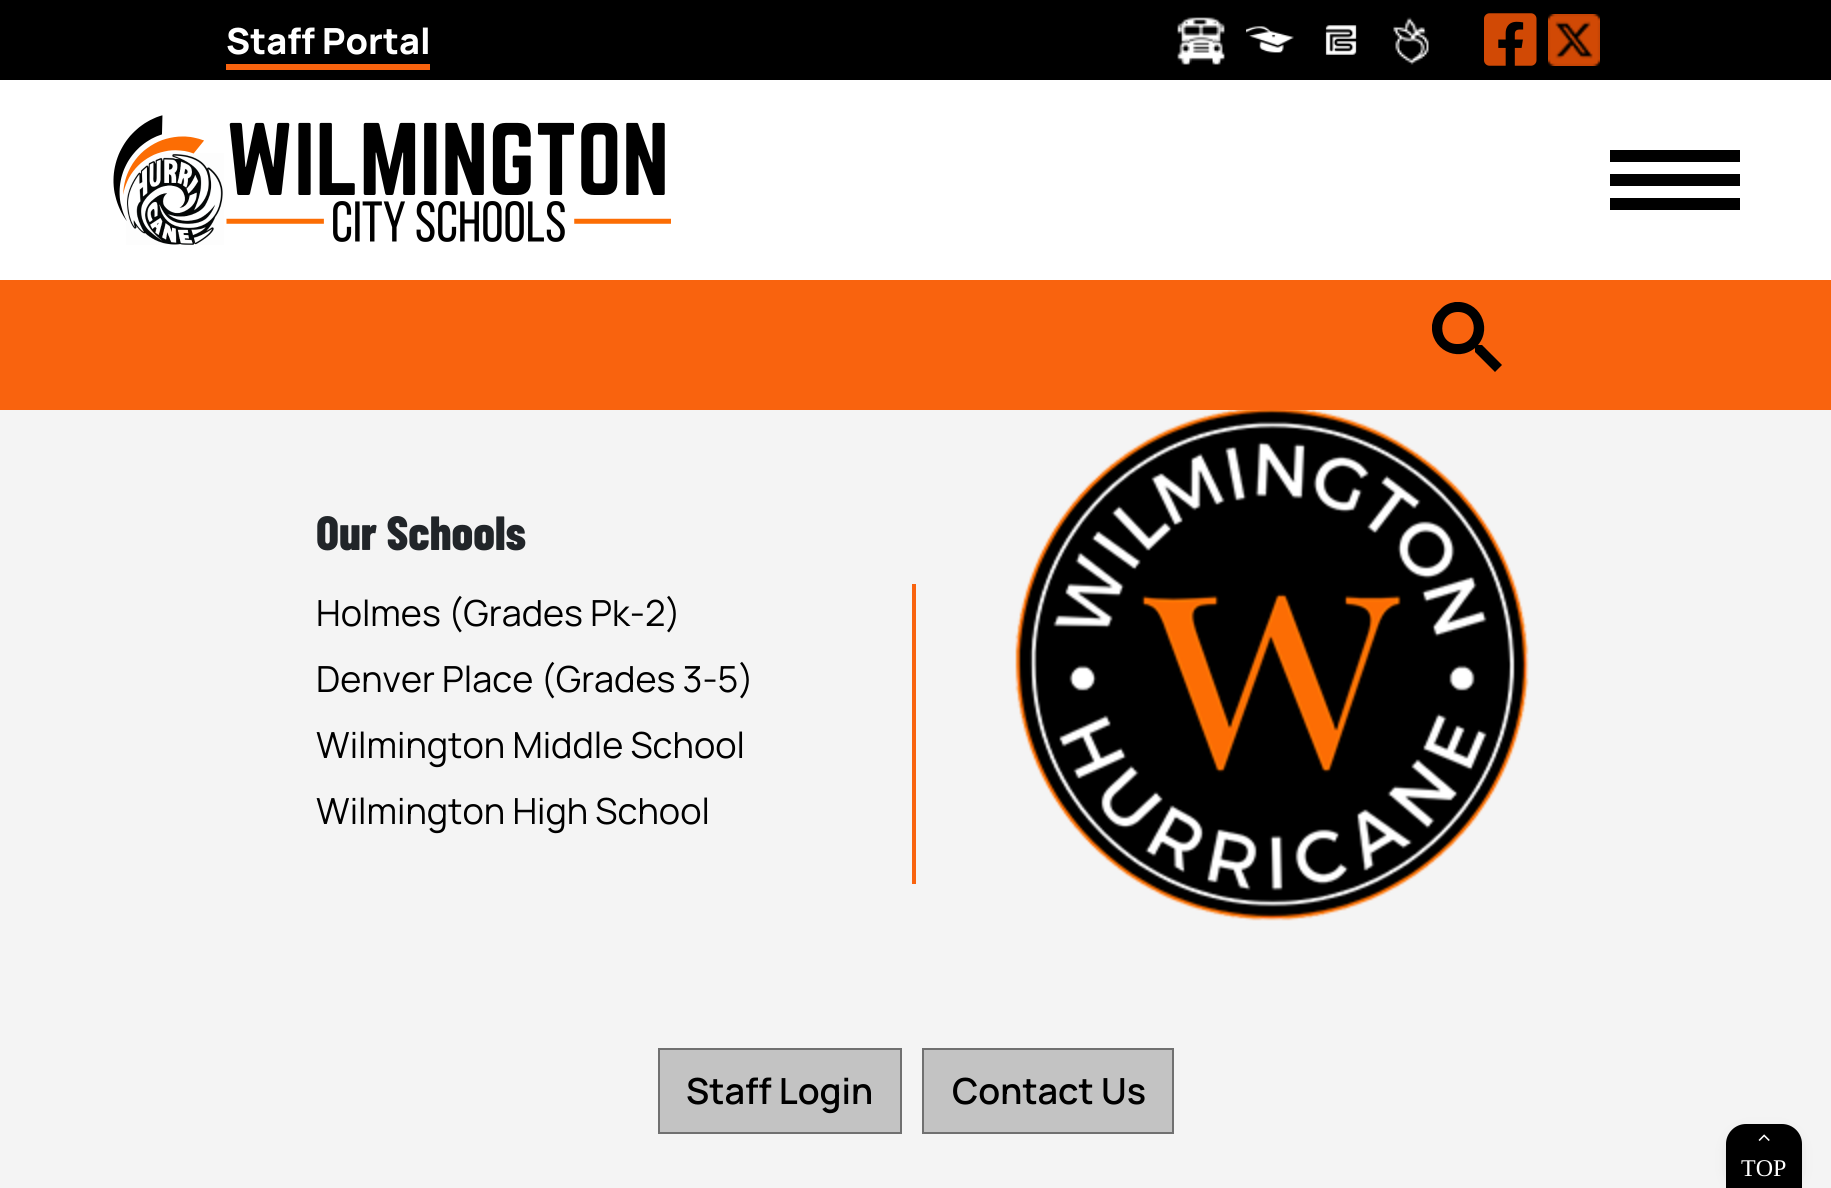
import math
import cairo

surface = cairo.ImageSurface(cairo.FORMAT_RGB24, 1831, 1188)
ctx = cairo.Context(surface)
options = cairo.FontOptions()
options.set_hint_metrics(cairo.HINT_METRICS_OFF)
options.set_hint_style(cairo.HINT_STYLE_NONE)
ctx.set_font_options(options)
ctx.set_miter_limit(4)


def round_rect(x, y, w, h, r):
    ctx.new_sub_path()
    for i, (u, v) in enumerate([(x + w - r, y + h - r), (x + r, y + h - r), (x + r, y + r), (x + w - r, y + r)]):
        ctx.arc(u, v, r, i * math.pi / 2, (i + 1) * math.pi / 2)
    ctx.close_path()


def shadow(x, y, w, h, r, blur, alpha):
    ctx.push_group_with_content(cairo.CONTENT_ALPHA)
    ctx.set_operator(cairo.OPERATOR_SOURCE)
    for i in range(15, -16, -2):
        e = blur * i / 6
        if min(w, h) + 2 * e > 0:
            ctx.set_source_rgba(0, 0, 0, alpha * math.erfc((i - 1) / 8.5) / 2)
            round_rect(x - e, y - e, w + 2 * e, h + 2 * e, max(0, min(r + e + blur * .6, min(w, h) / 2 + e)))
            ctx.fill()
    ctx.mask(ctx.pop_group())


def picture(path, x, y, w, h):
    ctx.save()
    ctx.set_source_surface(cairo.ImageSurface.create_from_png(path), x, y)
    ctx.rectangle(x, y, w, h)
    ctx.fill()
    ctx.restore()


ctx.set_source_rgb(0.957, 0.957, 0.957)
ctx.paint()
ctx.set_source_rgb(1, 1, 1)
ctx.rectangle(0, 80, 1831, 200)
ctx.fill()
ctx.set_source_rgb(0, 0, 0)
ctx.rectangle(0, 0, 1831, 80)
ctx.fill()
ctx.select_font_face("Manrope ExtraBold")
ctx.set_font_size(36)
ctx.set_source_rgb(1, 1, 1)
ctx.move_to(226, 54)
ctx.show_text("Staff Portal")
ctx.set_source_rgb(0.973, 0.388, 0.055)
ctx.rectangle(226, 64, 204, 6)
ctx.fill()
picture("img1.png", 1177, 17, 48, 48)
picture("img2.png", 1246, 26, 48, 27)
picture("img3.png", 1325, 25, 32, 30)
picture("img4.png", 1393, 17, 36, 48)
picture("img5.png", 1484, 13, 53, 53)
picture("img6.png", 1548, 14, 52, 52)
picture("img7.png", 113, 115, 558, 130)
ctx.set_source_rgb(0, 0, 0)
ctx.rectangle(1610, 150, 130, 12)
ctx.fill()
ctx.rectangle(1610, 174, 130, 12)
ctx.fill()
ctx.rectangle(1610, 198, 130, 12)
ctx.fill()
ctx.set_source_rgb(0.973, 0.388, 0.055)
ctx.rectangle(0, 280, 1831, 130)
ctx.fill()
ctx.save()
ctx.rectangle(1432, 302, 70, 70)
ctx.clip()
ctx.set_source_rgb(0, 0, 0)
ctx.new_path()
ctx.move_to(1458, 344)
ctx.curve_to(1479, 344, 1479, 312, 1458, 312)
ctx.curve_to(1437, 312, 1437, 345, 1458, 344)
ctx.close_path()
ctx.move_to(1482, 345)
ctx.line_to(1502, 365)
ctx.line_to(1495, 372)
ctx.line_to(1475, 352)
ctx.line_to(1475, 348)
ctx.curve_to(1457, 363, 1430, 349, 1432, 325)
ctx.curve_to(1433, 319, 1435, 314, 1440, 310)
ctx.curve_to(1444, 305, 1449, 303, 1455, 302)
ctx.curve_to(1479, 300, 1493, 327, 1478, 345)
ctx.close_path()
ctx.fill()
ctx.restore()
ctx.select_font_face("Barlow Condensed ExtraBold")
ctx.set_font_size(48)
ctx.set_source_rgb(0.129, 0.145, 0.161)
ctx.move_to(316, 550)
ctx.show_text("Our Schools")
ctx.select_font_face("Manrope")
ctx.set_font_size(36)
ctx.set_source_rgb(0, 0, 0)
ctx.move_to(316, 626)
ctx.show_text("Holmes (Grades Pk-2)")
ctx.set_source_rgb(0.973, 0.388, 0.055)
ctx.rectangle(912, 584, 4, 300)
ctx.fill()
ctx.set_source_rgb(0, 0, 0)
ctx.move_to(316, 692)
ctx.show_text("Denver Place (Grades 3-5)")
ctx.move_to(316, 758)
ctx.show_text("Wilmington Middle School")
ctx.move_to(316, 824)
ctx.show_text("Wilmington High School")
picture("img8.png", 1015, 410, 514, 511)
ctx.set_source_rgb(0.765, 0.765, 0.765)
ctx.rectangle(659, 1049, 242, 84)
ctx.fill_preserve()
ctx.set_source_rgb(0.439, 0.439, 0.439)
ctx.stroke()
ctx.select_font_face("Manrope SemiBold")
ctx.set_source_rgb(0, 0, 0)
ctx.move_to(686, 1104)
ctx.show_text("Staff Login")
ctx.set_source_rgb(0.765, 0.765, 0.765)
ctx.rectangle(923, 1049, 250, 84)
ctx.fill_preserve()
ctx.set_source_rgb(0.439, 0.439, 0.439)
ctx.stroke()
ctx.set_source_rgb(0, 0, 0)
ctx.move_to(952, 1104)
ctx.show_text("Contact Us")
ctx.set_source_rgb(0.129, 0.129, 0.129)
shadow(1740, 1142, 48, 36, 6, 10, 0.5)
ctx.set_source_rgb(0, 0, 0)
ctx.new_path()
ctx.move_to(1746, 1124)
ctx.line_to(1782, 1124)
ctx.curve_to(1793, 1124, 1802, 1133, 1802, 1144)
ctx.line_to(1802, 1188)
ctx.line_to(1726, 1188)
ctx.line_to(1726, 1144)
ctx.curve_to(1726, 1133, 1735, 1124, 1746, 1124)
ctx.close_path()
ctx.fill()
ctx.select_font_face("Manrope")
ctx.set_font_size(24)
ctx.set_source_rgb(1, 1, 1)
ctx.move_to(1756, 1152)
ctx.show_text("^")
ctx.select_font_face("Liberation Serif")
ctx.move_to(1741, 1176)
ctx.show_text("TOP")
surface.write_to_png("page.png")
